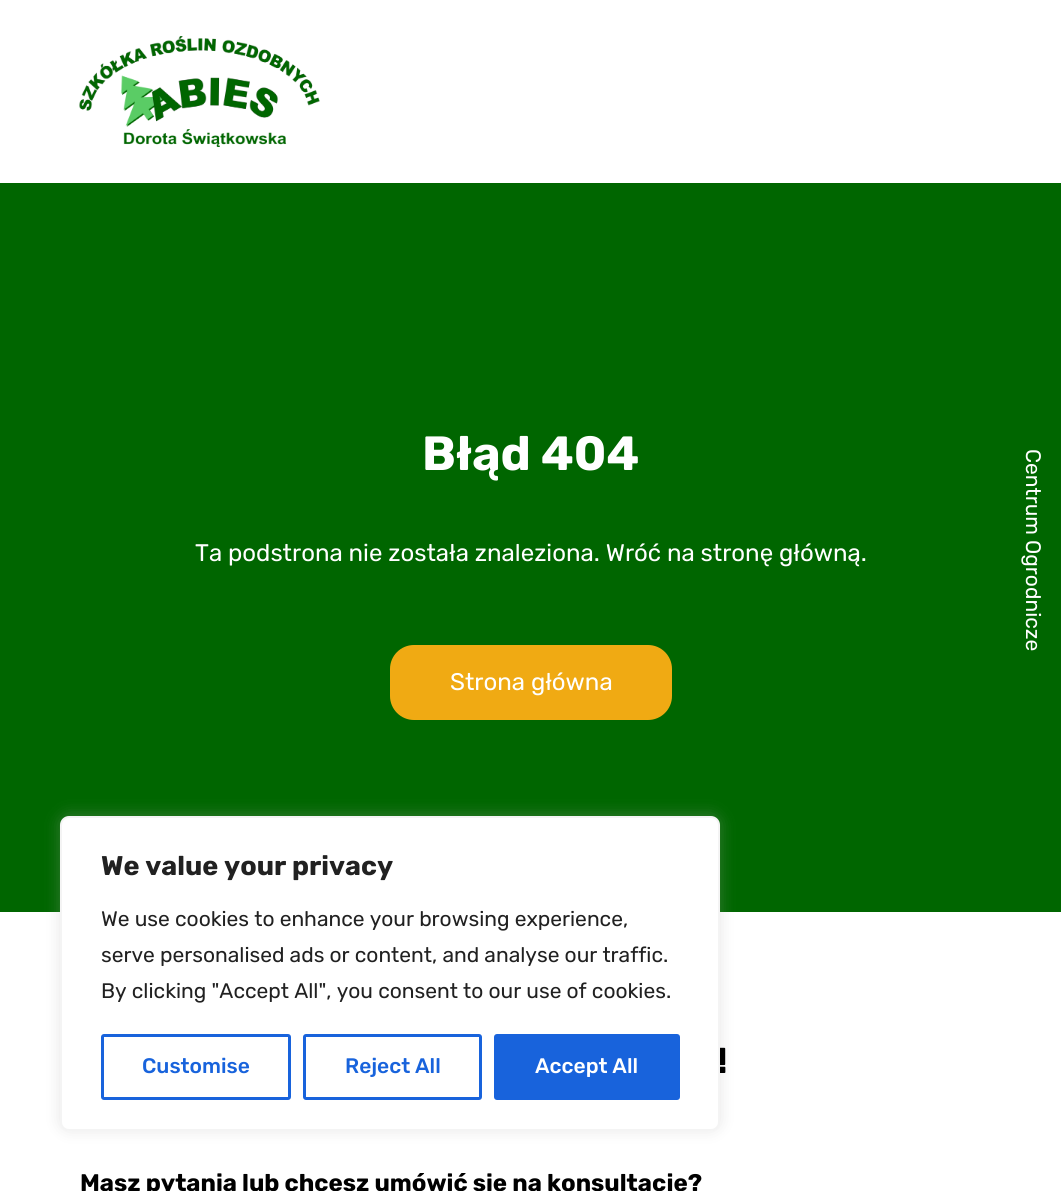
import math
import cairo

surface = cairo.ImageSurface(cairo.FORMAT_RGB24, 1061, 1191)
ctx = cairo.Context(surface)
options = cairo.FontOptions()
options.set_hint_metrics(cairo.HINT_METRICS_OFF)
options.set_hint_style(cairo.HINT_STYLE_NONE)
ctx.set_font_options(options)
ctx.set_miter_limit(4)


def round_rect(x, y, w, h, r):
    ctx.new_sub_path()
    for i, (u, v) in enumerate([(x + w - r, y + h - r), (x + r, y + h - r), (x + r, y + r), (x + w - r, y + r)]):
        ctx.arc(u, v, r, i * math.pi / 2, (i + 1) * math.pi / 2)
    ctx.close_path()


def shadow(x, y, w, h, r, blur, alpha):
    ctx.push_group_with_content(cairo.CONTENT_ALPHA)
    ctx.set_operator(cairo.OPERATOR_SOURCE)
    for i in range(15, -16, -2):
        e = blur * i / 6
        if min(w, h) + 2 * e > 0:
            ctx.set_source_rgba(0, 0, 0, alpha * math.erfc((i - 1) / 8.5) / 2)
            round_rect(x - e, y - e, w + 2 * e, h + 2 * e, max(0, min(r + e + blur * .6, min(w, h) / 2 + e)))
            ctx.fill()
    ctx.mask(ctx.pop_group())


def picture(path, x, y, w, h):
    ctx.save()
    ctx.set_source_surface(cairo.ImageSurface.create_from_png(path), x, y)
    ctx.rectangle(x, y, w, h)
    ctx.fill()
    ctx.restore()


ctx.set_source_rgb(1, 1, 1)
ctx.paint()
ctx.set_source_rgb(0, 0.4, 0)
ctx.rectangle(0, 183, 1061, 729)
ctx.fill()
picture("img1.png", 79, 36, 241, 111)
ctx.select_font_face("Rubik", cairo.FONT_SLANT_NORMAL, cairo.FONT_WEIGHT_BOLD)
ctx.set_font_size(48)
ctx.set_source_rgb(1, 1, 1)
ctx.move_to(422, 470)
ctx.show_text("Błąd 404")
ctx.select_font_face("Rubik")
ctx.set_font_size(24)
ctx.move_to(195, 561)
ctx.show_text("Ta podstrona nie została znaleziona. Wróć na stronę główną.")
ctx.set_source_rgb(0.941, 0.667, 0.075)
round_rect(390, 645, 282, 75, 24)
ctx.fill()
ctx.set_source_rgb(1, 1, 1)
ctx.move_to(450, 690)
ctx.show_text("Strona główna")
ctx.set_font_size(21)
ctx.save()
ctx.translate(1026, 449)
ctx.rotate(90 * math.pi / 180)
ctx.move_to(0, 0)
ctx.show_text("Centrum Ogrodnicze")
ctx.restore()
ctx.set_source_rgb(0.675, 0.671, 0.671)
shadow(60, 815, 660, 315, 9, 7.5, 0.3)
ctx.select_font_face("Rubik", cairo.FONT_SLANT_NORMAL, cairo.FONT_WEIGHT_BOLD)
ctx.set_font_size(36)
ctx.set_source_rgb(0, 0, 0)
ctx.move_to(717, 1073)
ctx.show_text("!")
ctx.set_source_rgb(1, 1, 1)
round_rect(61, 817, 658, 313, 8)
ctx.fill_preserve()
ctx.set_source_rgb(0.957, 0.957, 0.957)
ctx.stroke()
ctx.set_font_size(27)
ctx.set_source_rgb(0.129, 0.129, 0.129)
ctx.move_to(101, 875)
ctx.show_text("We value your privacy")
ctx.select_font_face("Rubik")
ctx.set_font_size(21)
ctx.move_to(101, 926)
ctx.show_text("We use cookies to enhance your browsing experience,")
ctx.move_to(101, 962)
ctx.show_text("serve personalised ads or content, and analyse our traffic.")
ctx.move_to(101, 998)
ctx.show_text("By clicking \"Accept All\", you consent to our use of cookies.")
round_rect(102.5, 1035.5, 187, 63, 1.5)
ctx.set_source_rgb(0.094, 0.388, 0.863)
ctx.set_line_width(3)
ctx.stroke()
ctx.select_font_face("Rubik Medium")
ctx.move_to(142, 1073)
ctx.show_text("Customise")
round_rect(304.5, 1035.5, 176, 63, 1.5)
ctx.stroke()
ctx.move_to(345, 1073)
ctx.show_text("Reject All")
round_rect(495.5, 1035.5, 183, 63, 1.5)
ctx.fill_preserve()
ctx.stroke()
ctx.set_source_rgb(1, 1, 1)
ctx.move_to(535, 1073)
ctx.show_text("Accept All")
ctx.select_font_face("Rubik", cairo.FONT_SLANT_NORMAL, cairo.FONT_WEIGHT_BOLD)
ctx.set_font_size(24)
ctx.set_source_rgb(0, 0, 0)
ctx.move_to(80, 1191)
ctx.show_text("Masz pytania lub chcesz umówić się na konsultację?")
surface.write_to_png("page.png")
